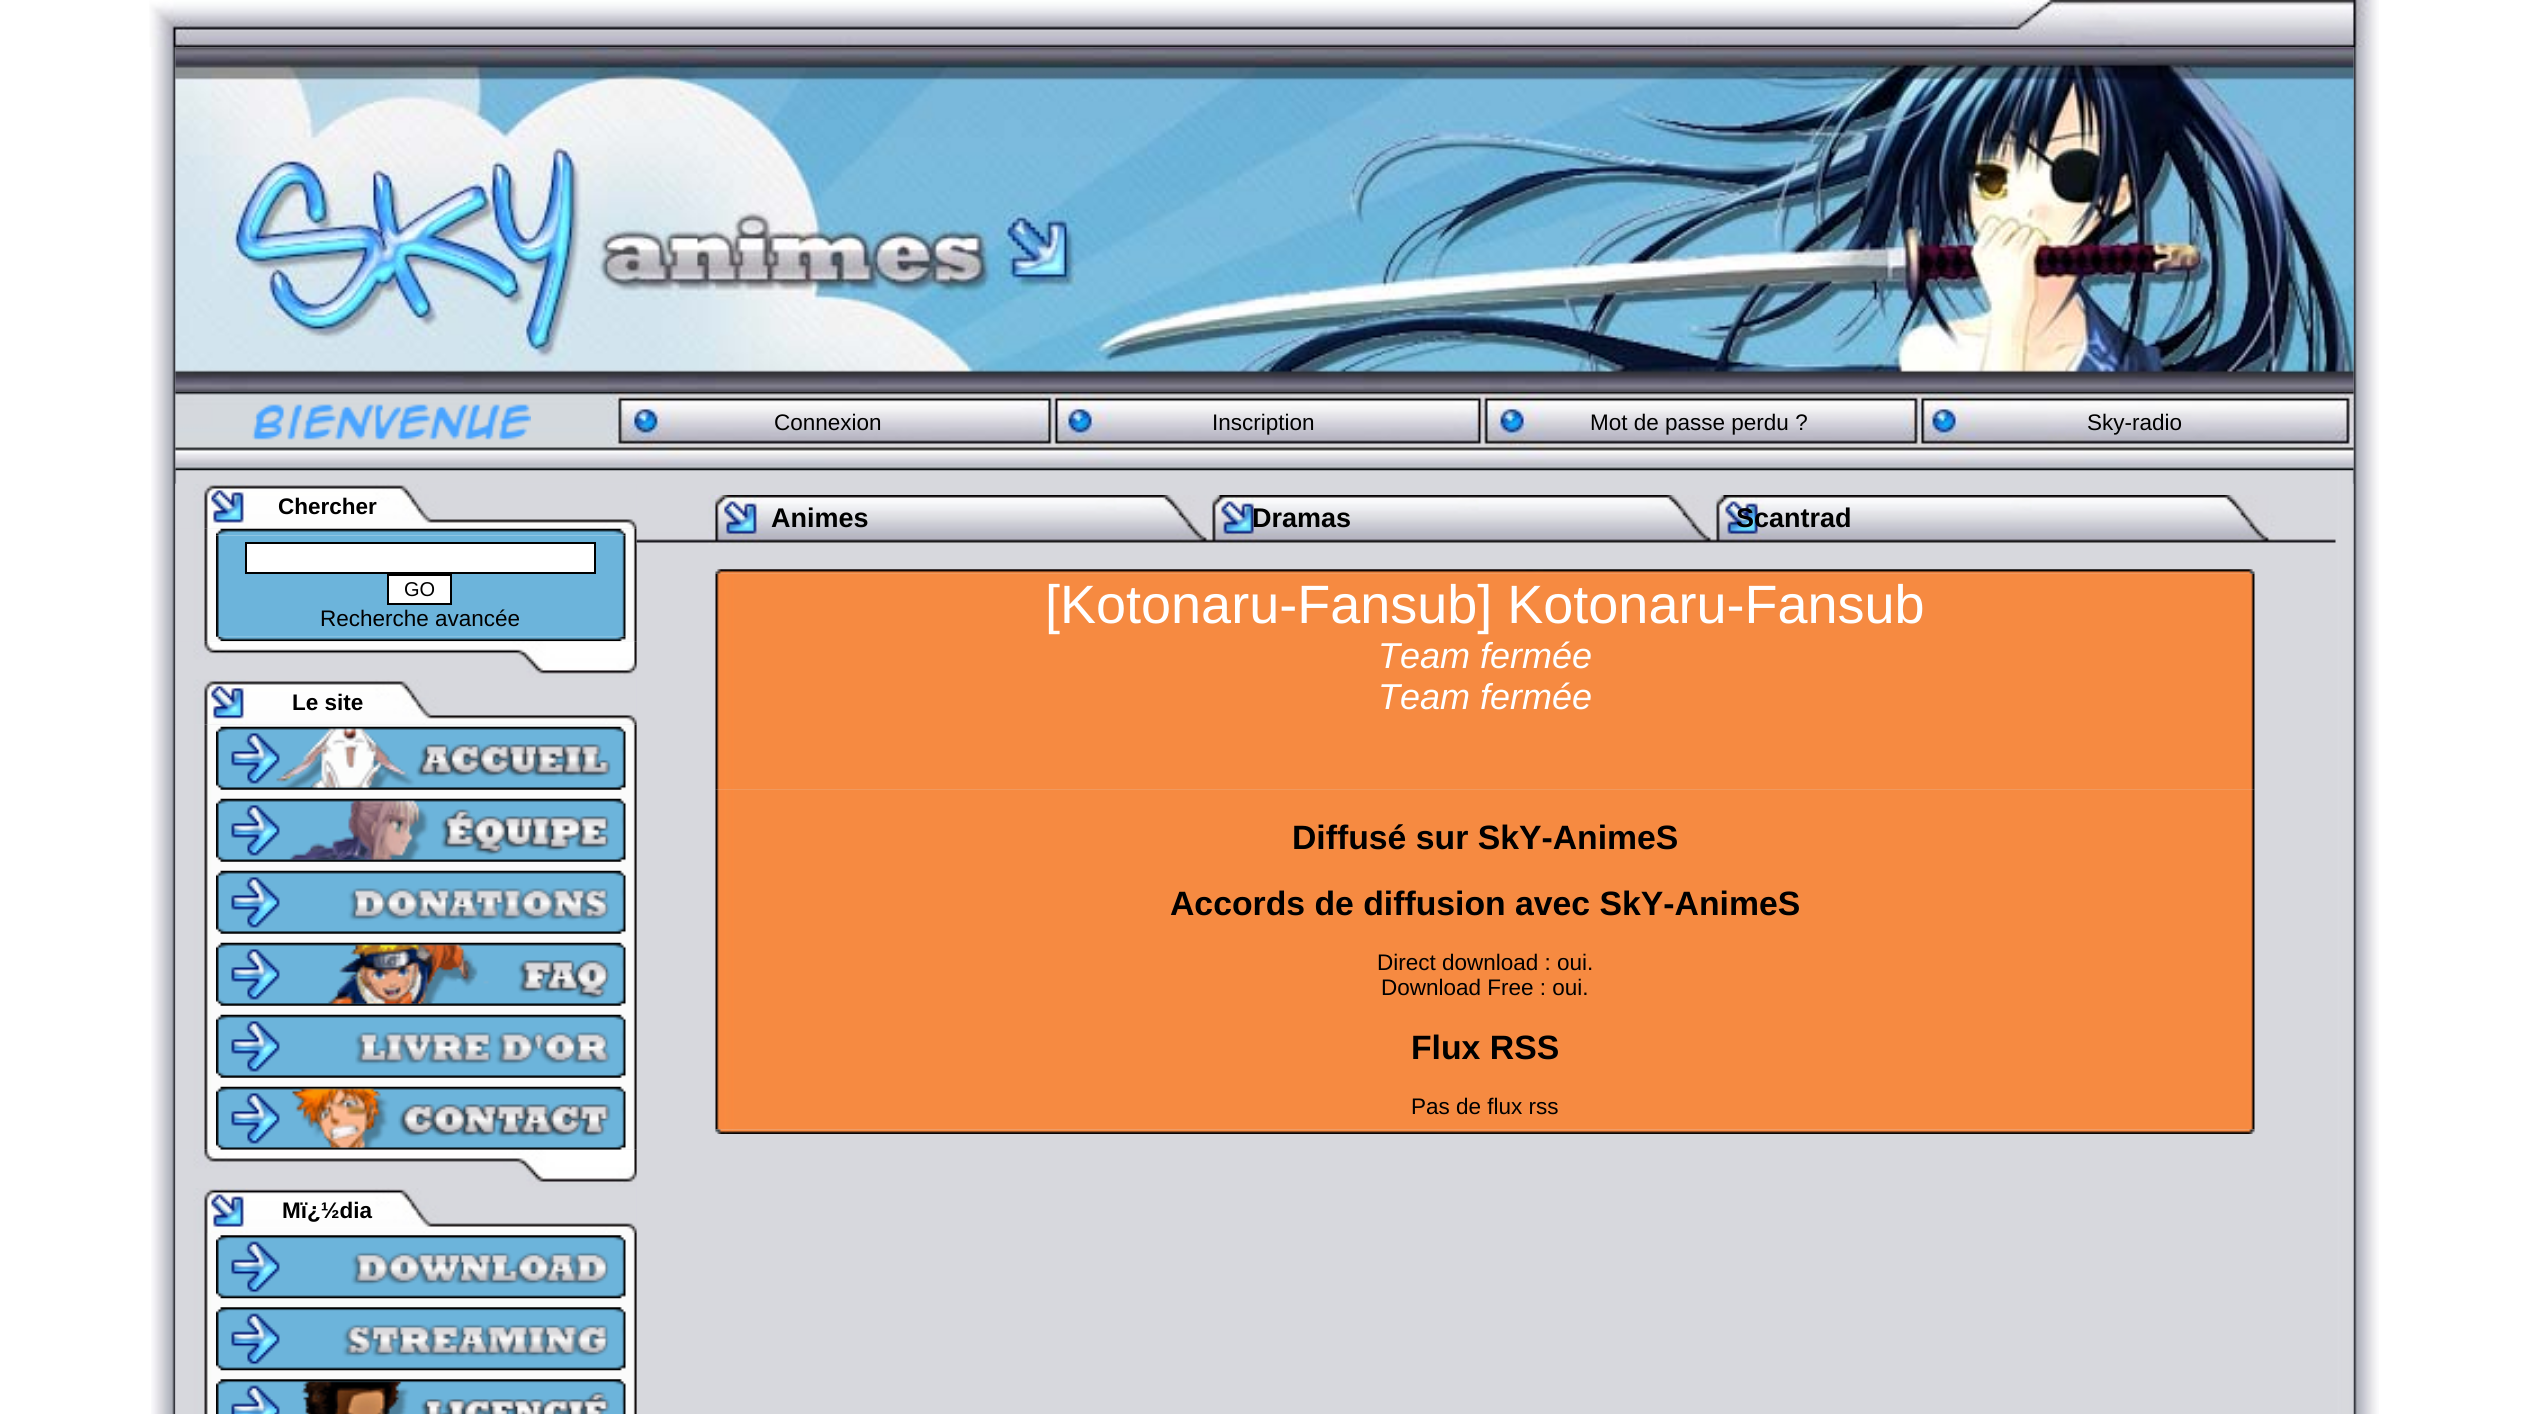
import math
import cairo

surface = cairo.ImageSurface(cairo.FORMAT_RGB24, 2531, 1414)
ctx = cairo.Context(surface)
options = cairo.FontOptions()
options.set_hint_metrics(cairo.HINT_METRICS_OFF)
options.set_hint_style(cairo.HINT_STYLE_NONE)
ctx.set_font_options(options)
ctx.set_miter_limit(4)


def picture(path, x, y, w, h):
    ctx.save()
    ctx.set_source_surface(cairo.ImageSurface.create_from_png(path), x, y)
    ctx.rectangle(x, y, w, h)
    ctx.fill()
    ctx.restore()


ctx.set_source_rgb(1, 1, 1)
ctx.paint()
picture("img1.png", 151, 0, 2228, 1414)
picture("img2.png", 149, 0, 2220, 48)
picture("img3.png", 175, 47, 2179, 345)
picture("img4.png", 175, 391, 2179, 80)
picture("img5.png", 252, 404, 279, 36)
ctx.select_font_face("Liberation Sans")
ctx.set_font_size(22.5)
ctx.set_source_rgb(0, 0, 0)
ctx.move_to(774, 430)
ctx.show_text("Connexion")
ctx.move_to(1212, 430)
ctx.show_text("Inscription")
ctx.move_to(1590, 430)
ctx.show_text("Mot de passe perdu ?")
ctx.move_to(2087, 430)
ctx.show_text("Sky-radio")
picture("img6.png", 175, 483, 2, 931)
picture("img7.png", 175, 483, 462, 46)
ctx.select_font_face("Liberation Sans", cairo.FONT_SLANT_NORMAL, cairo.FONT_WEIGHT_BOLD)
ctx.move_to(278, 514)
ctx.show_text("Chercher")
picture("img8.png", 175, 528, 462, 114)
picture("img9.png", 216, 528, 410, 8)
picture("img10.png", 216, 535, 410, 102)
ctx.set_source_rgb(1, 1, 1)
ctx.rectangle(246, 543, 349, 30)
ctx.fill_preserve()
ctx.set_source_rgb(0, 0, 0)
ctx.stroke()
ctx.set_source_rgb(1, 1, 1)
ctx.rectangle(388, 575, 63, 29)
ctx.fill_preserve()
ctx.set_source_rgb(0, 0, 0)
ctx.stroke()
ctx.select_font_face("Liberation Sans")
ctx.set_font_size(20)
ctx.move_to(404, 596)
ctx.show_text("GO")
ctx.set_font_size(22.5)
ctx.move_to(320, 626)
ctx.show_text("Recherche avancée")
picture("img11.png", 217, 636, 409, 6)
picture("img12.png", 175, 641, 462, 39)
picture("img13.png", 175, 679, 462, 46)
ctx.select_font_face("Liberation Sans", cairo.FONT_SLANT_NORMAL, cairo.FONT_WEIGHT_BOLD)
ctx.move_to(292, 710)
ctx.show_text("Le site")
picture("img14.png", 175, 724, 462, 426)
picture("img15.png", 216, 726, 410, 64)
picture("img16.png", 276, 728, 335, 61)
picture("img17.png", 416, 744, 195, 33)
picture("img18.png", 216, 798, 410, 64)
picture("img19.png", 289, 800, 321, 61)
picture("img20.png", 441, 809, 169, 46)
picture("img15.png", 216, 870, 410, 64)
picture("img21.png", 348, 888, 262, 33)
picture("img15.png", 216, 942, 410, 64)
picture("img22.png", 328, 944, 282, 61)
picture("img23.png", 518, 960, 92, 39)
picture("img15.png", 216, 1014, 410, 64)
picture("img24.png", 355, 1032, 256, 33)
picture("img25.png", 216, 1086, 410, 64)
picture("img26.png", 291, 1088, 320, 61)
picture("img27.png", 398, 1104, 213, 33)
picture("img28.png", 175, 1149, 462, 39)
picture("img29.png", 175, 1188, 462, 45)
ctx.move_to(282, 1218)
ctx.show_text("Mï¿½dia")
picture("img30.png", 175, 1233, 462, 181)
picture("img31.png", 216, 1235, 410, 64)
picture("img32.png", 351, 1252, 259, 33)
picture("img31.png", 216, 1307, 410, 64)
picture("img33.png", 342, 1324, 268, 33)
picture("img34.png", 216, 1379, 410, 35)
picture("img35.png", 301, 1381, 309, 33)
picture("img36.png", 421, 1392, 189, 22)
ctx.set_source_rgba(0.843, 0.843, 0.875, 0.25)
ctx.rectangle(636, 524, 1, 890)
ctx.fill()
picture("img37.png", 636, 495, 1700, 50)
ctx.set_font_size(27)
ctx.set_source_rgb(0, 0, 0)
ctx.move_to(771, 527)
ctx.show_text("Animes")
ctx.move_to(1252, 527)
ctx.show_text("Dramas")
ctx.move_to(1736, 527)
ctx.show_text("Scantrad")
picture("img38.png", 715, 569, 1540, 5)
picture("img39.png", 715, 573, 1540, 217)
ctx.select_font_face("Liberation Sans")
ctx.set_font_size(54)
ctx.set_source_rgb(1, 1, 1)
ctx.move_to(1045, 623)
ctx.show_text("[Kotonaru-Fansub] Kotonaru-Fansub")
ctx.select_font_face("Liberation Sans", cairo.FONT_SLANT_ITALIC)
ctx.set_font_size(36)
ctx.move_to(1378, 668)
ctx.show_text("Team fermée")
ctx.move_to(1378, 709)
ctx.show_text("Team fermée")
picture("img40.png", 715, 789, 1540, 341)
ctx.select_font_face("Liberation Sans", cairo.FONT_SLANT_NORMAL, cairo.FONT_WEIGHT_BOLD)
ctx.set_font_size(33.75)
ctx.set_source_rgb(0, 0, 0)
ctx.move_to(1292, 849)
ctx.show_text("Diffusé sur SkY-AnimeS")
ctx.move_to(1170, 915)
ctx.show_text("Accords de diffusion avec SkY-AnimeS")
ctx.select_font_face("Liberation Sans")
ctx.set_font_size(22.5)
ctx.move_to(1377, 970)
ctx.show_text("Direct download : oui.")
ctx.move_to(1381, 995)
ctx.show_text("Download Free : oui.")
ctx.select_font_face("Liberation Sans", cairo.FONT_SLANT_NORMAL, cairo.FONT_WEIGHT_BOLD)
ctx.set_font_size(33.75)
ctx.move_to(1411, 1059)
ctx.show_text("Flux RSS")
ctx.select_font_face("Liberation Sans")
ctx.set_font_size(22.5)
ctx.move_to(1411, 1114)
ctx.show_text("Pas de flux rss")
picture("img41.png", 715, 1129, 1540, 5)
picture("img42.png", 2352, 483, 2, 931)
surface.write_to_png("page.png")
